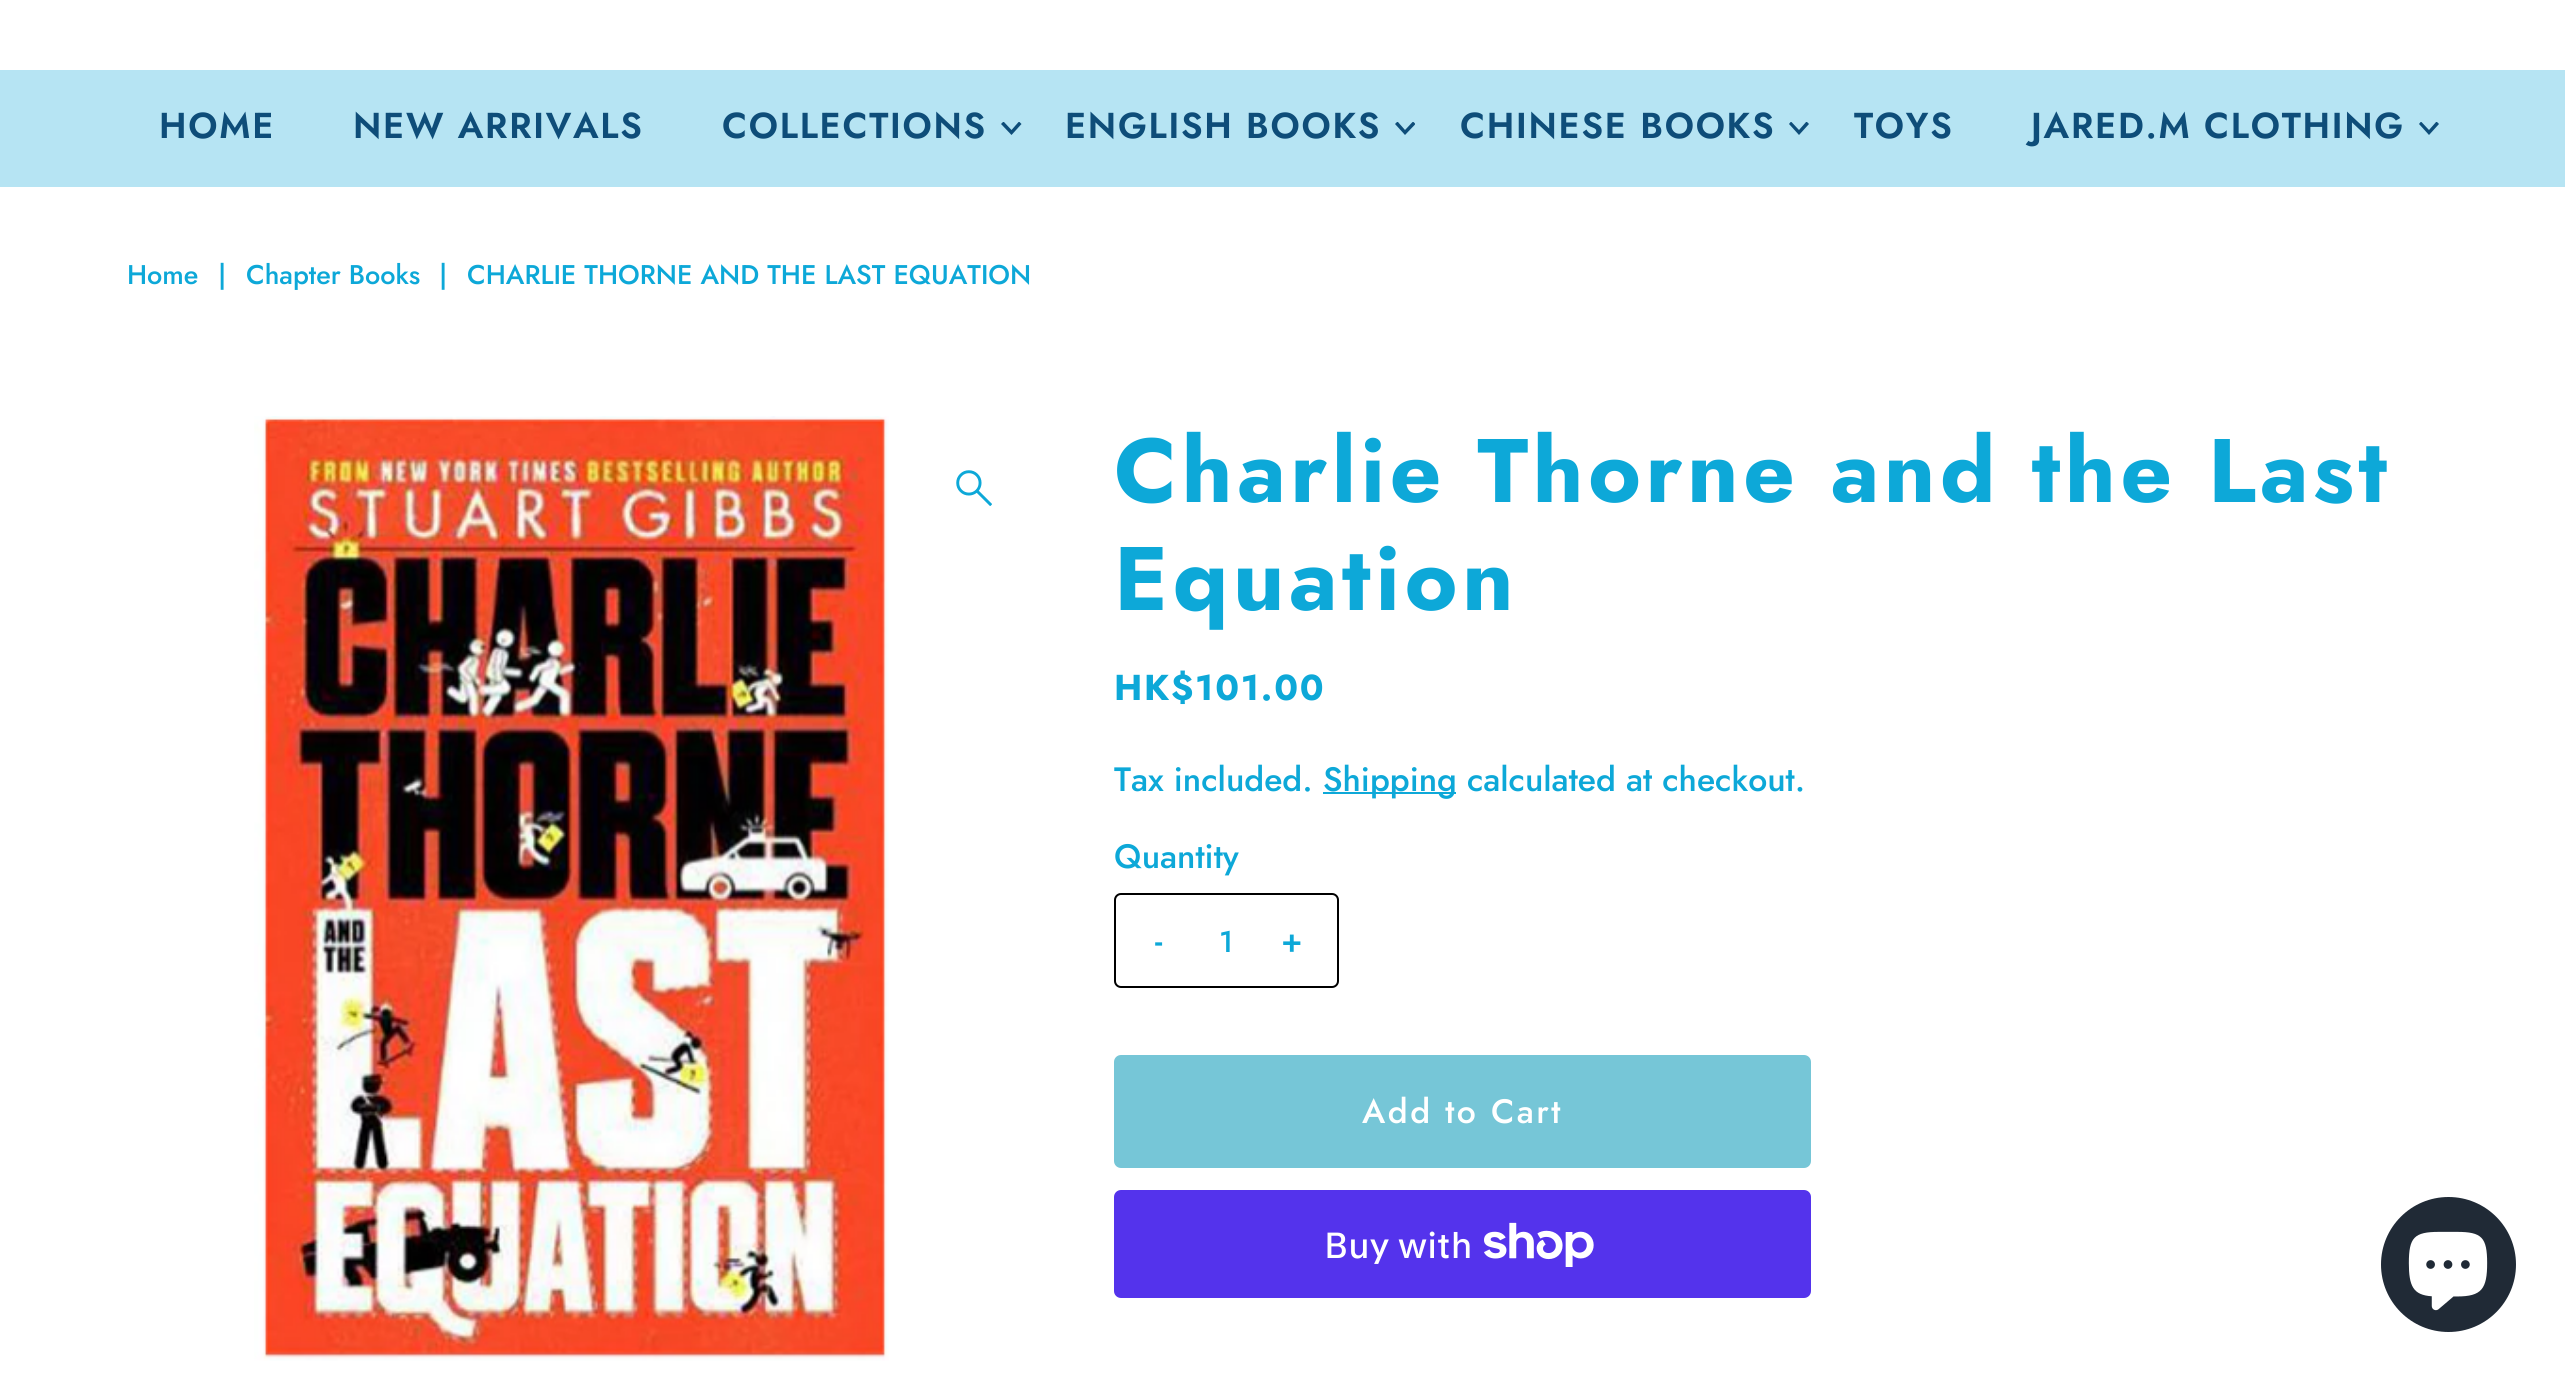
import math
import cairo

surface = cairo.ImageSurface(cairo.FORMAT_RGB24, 2565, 1379)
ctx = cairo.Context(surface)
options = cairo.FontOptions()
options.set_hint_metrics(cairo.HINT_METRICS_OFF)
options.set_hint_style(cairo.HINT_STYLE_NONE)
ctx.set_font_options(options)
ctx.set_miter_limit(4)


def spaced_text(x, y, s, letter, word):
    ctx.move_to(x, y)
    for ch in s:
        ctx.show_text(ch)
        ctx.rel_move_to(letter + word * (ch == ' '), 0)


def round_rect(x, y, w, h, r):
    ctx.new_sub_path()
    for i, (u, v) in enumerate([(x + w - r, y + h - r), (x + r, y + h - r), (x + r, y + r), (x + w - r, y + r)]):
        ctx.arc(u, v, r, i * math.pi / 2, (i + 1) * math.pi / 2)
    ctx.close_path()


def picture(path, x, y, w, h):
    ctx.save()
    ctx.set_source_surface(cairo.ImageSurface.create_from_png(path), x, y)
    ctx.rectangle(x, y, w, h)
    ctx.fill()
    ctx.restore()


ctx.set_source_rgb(1, 1, 1)
ctx.paint()
ctx.set_source_rgb(0.714, 0.894, 0.953)
ctx.rectangle(0, 70, 2565, 117)
ctx.fill()
ctx.select_font_face("Jost SemiBold")
ctx.set_font_size(36)
ctx.set_source_rgb(0.055, 0.302, 0.475)
spaced_text(159, 138, "HOME", 1.75, 0)
spaced_text(353, 138, "NEW ARRIVALS", 1.75, 0)
spaced_text(722, 138, "COLLECTIONS", 1.75, 0)
ctx.save()
ctx.rectangle(1001, 122, 21, 13)
ctx.clip()
ctx.new_path()
ctx.move_to(1019, 121.5)
ctx.line_to(1011.5, 130)
ctx.line_to(1003.5, 121.5)
ctx.line_to(1001, 124)
ctx.line_to(1011.5, 135)
ctx.line_to(1021.5, 124)
ctx.close_path()
ctx.fill()
ctx.restore()
spaced_text(1065, 138, "ENGLISH BOOKS", 1.75, 0)
ctx.save()
ctx.rectangle(1395, 122, 20, 13)
ctx.clip()
ctx.new_path()
ctx.move_to(1413, 121.5)
ctx.line_to(1405, 130)
ctx.line_to(1397.5, 121.5)
ctx.line_to(1395, 124)
ctx.line_to(1405, 135)
ctx.line_to(1415.5, 124)
ctx.close_path()
ctx.fill()
ctx.restore()
spaced_text(1460, 138, "CHINESE BOOKS", 1.75, 0)
ctx.save()
ctx.rectangle(1789, 122, 20, 13)
ctx.clip()
ctx.new_path()
ctx.move_to(1806.5, 121.5)
ctx.line_to(1799, 130)
ctx.line_to(1791, 121.5)
ctx.line_to(1789, 124)
ctx.line_to(1799, 135)
ctx.line_to(1809, 124)
ctx.close_path()
ctx.fill()
ctx.restore()
spaced_text(1854, 138, "TOYS", 1.75, 0)
spaced_text(2031, 138, "JARED.M CLOTHING", 1.75, 0)
ctx.save()
ctx.rectangle(2419, 122, 20, 13)
ctx.clip()
ctx.new_path()
ctx.move_to(2436.5, 121.5)
ctx.line_to(2429, 130)
ctx.line_to(2421, 121.5)
ctx.line_to(2419, 124)
ctx.line_to(2429, 135)
ctx.line_to(2439, 124)
ctx.close_path()
ctx.fill()
ctx.restore()
ctx.select_font_face("Jost Medium")
ctx.set_font_size(27)
ctx.set_source_rgb(0.051, 0.659, 0.847)
ctx.move_to(127, 284)
ctx.show_text("Home")
ctx.move_to(218, 284)
ctx.show_text("|")
ctx.move_to(246, 284)
ctx.show_text("Chapter Books")
ctx.move_to(439, 284)
ctx.show_text("|")
ctx.move_to(467, 284)
ctx.show_text("CHARLIE THORNE AND THE LAST EQUATION")
picture("img1.png", 254, 416, 635, 945)
picture("img2.png", 956, 470, 36, 36)
ctx.select_font_face("Jost", cairo.FONT_SLANT_NORMAL, cairo.FONT_WEIGHT_BOLD)
ctx.set_font_size(90)
spaced_text(1114, 502, "Charlie Thorne and the Last", 4.5, 0)
spaced_text(1114, 610, "Equation", 4.5, 0)
ctx.set_font_size(36)
spaced_text(1114, 700, "HK$101.00", 1.75, 0)
ctx.select_font_face("Jost Medium")
ctx.set_font_size(33.75)
ctx.move_to(1114, 791)
ctx.show_text("Tax included.")
ctx.rectangle(1323, 792, 133, 2)
ctx.fill()
ctx.move_to(1323, 791)
ctx.show_text("Shipping calculated at checkout.")
ctx.move_to(1114, 868)
ctx.show_text("Quantity")
round_rect(1115, 894, 223, 93, 6)
ctx.set_source_rgb(0, 0, 0)
ctx.stroke()
ctx.set_source_rgb(0.051, 0.659, 0.847)
spaced_text(1155, 952, "-", 2.5, 0)
ctx.set_font_size(30)
ctx.move_to(1219, 952)
ctx.show_text("1")
ctx.set_font_size(33.75)
spaced_text(1281, 952, "+", 2.5, 0)
ctx.set_source_rgb(0.463, 0.776, 0.843)
round_rect(1114, 1055, 697, 113, 7)
ctx.fill()
ctx.set_source_rgb(1, 1, 1)
spaced_text(1362, 1123, "Add to Cart", 2.5, 0)
ctx.set_source_rgb(0.329, 0.2, 0.922)
round_rect(1114, 1190, 697, 108, 7)
ctx.fill()
ctx.select_font_face("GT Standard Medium")
ctx.set_font_size(36)
ctx.set_source_rgb(1, 1, 1)
ctx.move_to(1324, 1258)
ctx.show_text("Buy with")
picture("img3.png", 1484, 1222, 110, 45)
ctx.set_source_rgb(0.125, 0.165, 0.212)
ctx.arc(2448.5, 1264.5, 67.5, 0, 2 * math.pi)
ctx.fill()
picture("img4.png", 2408, 1231, 80, 80)
surface.write_to_png("page.png")
